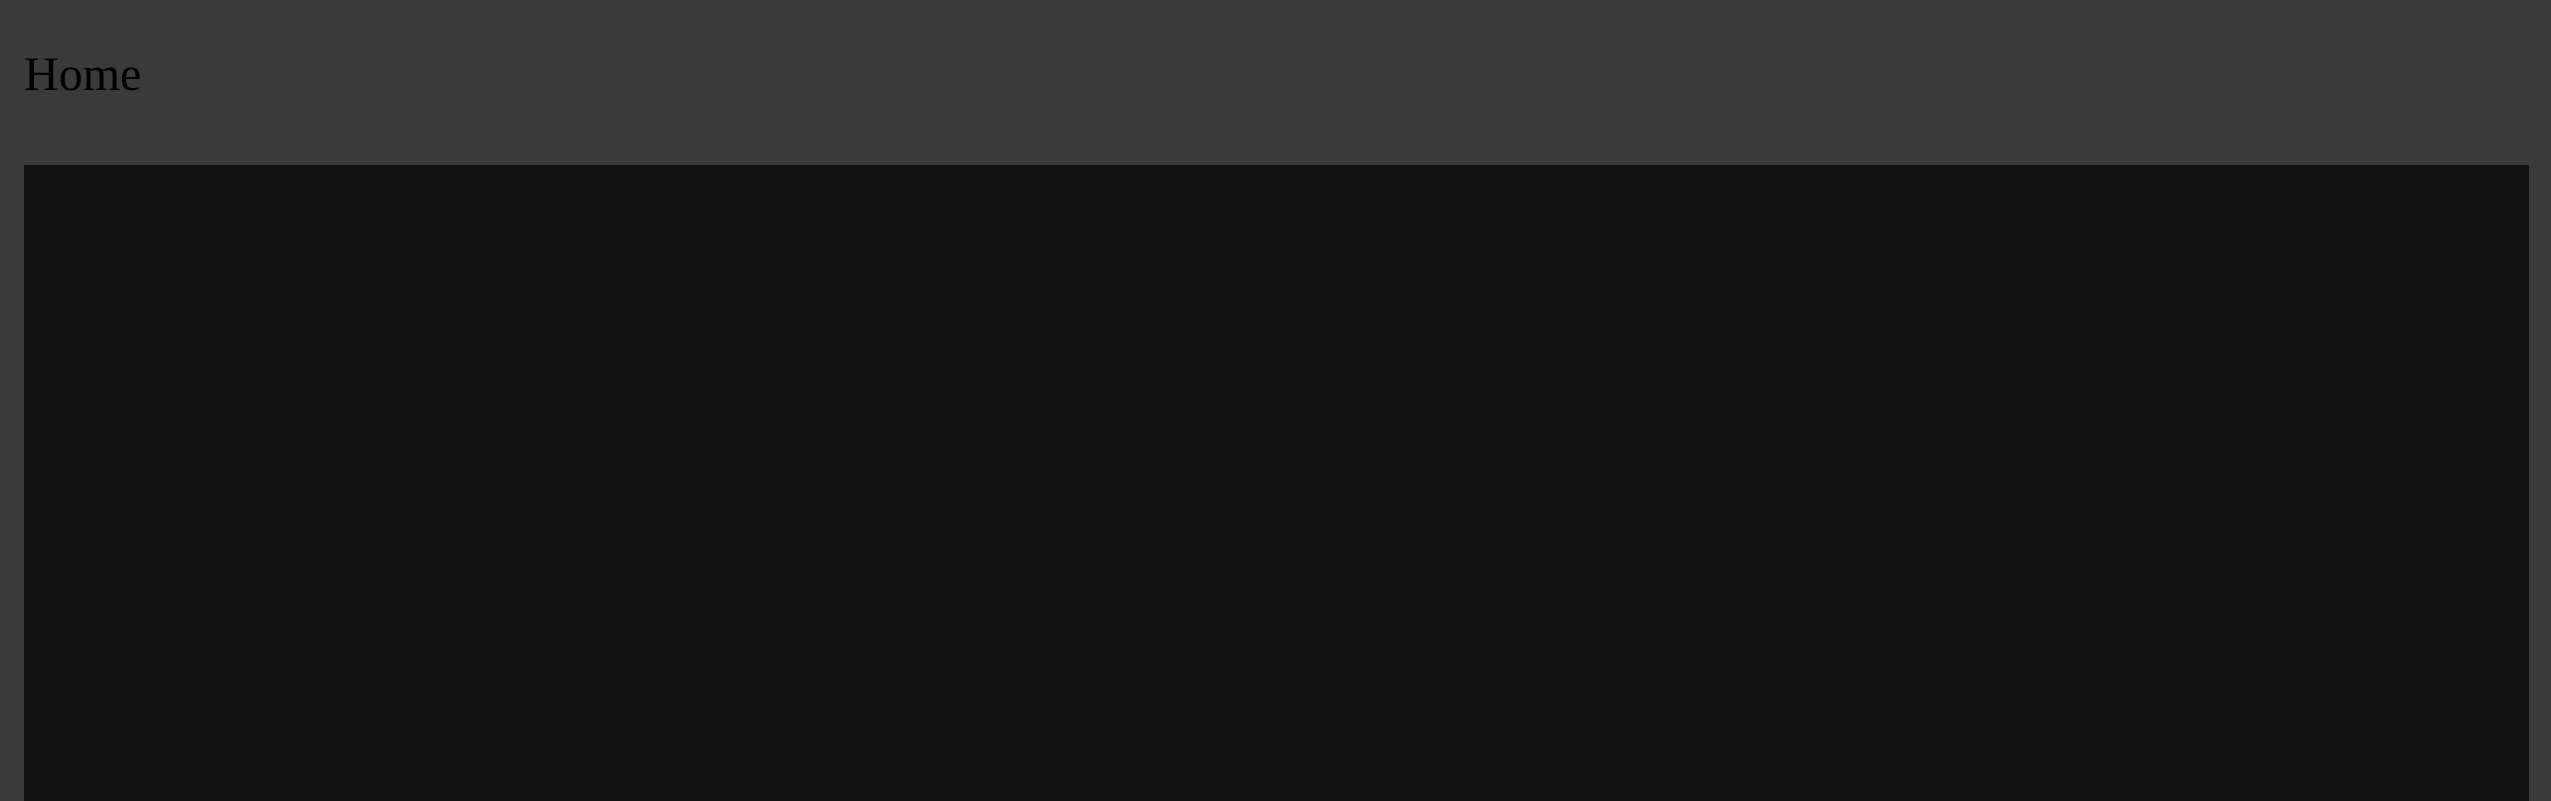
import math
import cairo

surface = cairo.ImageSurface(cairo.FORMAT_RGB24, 2551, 801)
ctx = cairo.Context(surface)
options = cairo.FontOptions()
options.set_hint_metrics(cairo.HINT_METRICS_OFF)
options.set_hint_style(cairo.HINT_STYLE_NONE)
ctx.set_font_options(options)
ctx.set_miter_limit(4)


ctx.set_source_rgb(0.227, 0.227, 0.212)
ctx.paint()
ctx.select_font_face("Liberation Serif")
ctx.set_font_size(48)
ctx.set_source_rgb(0, 0, 0)
ctx.move_to(24, 90)
ctx.show_text("Home")
ctx.set_source_rgb(0.067, 0.067, 0.067)
ctx.rectangle(24, 165, 2505, 636)
ctx.fill()
surface.write_to_png("page.png")
